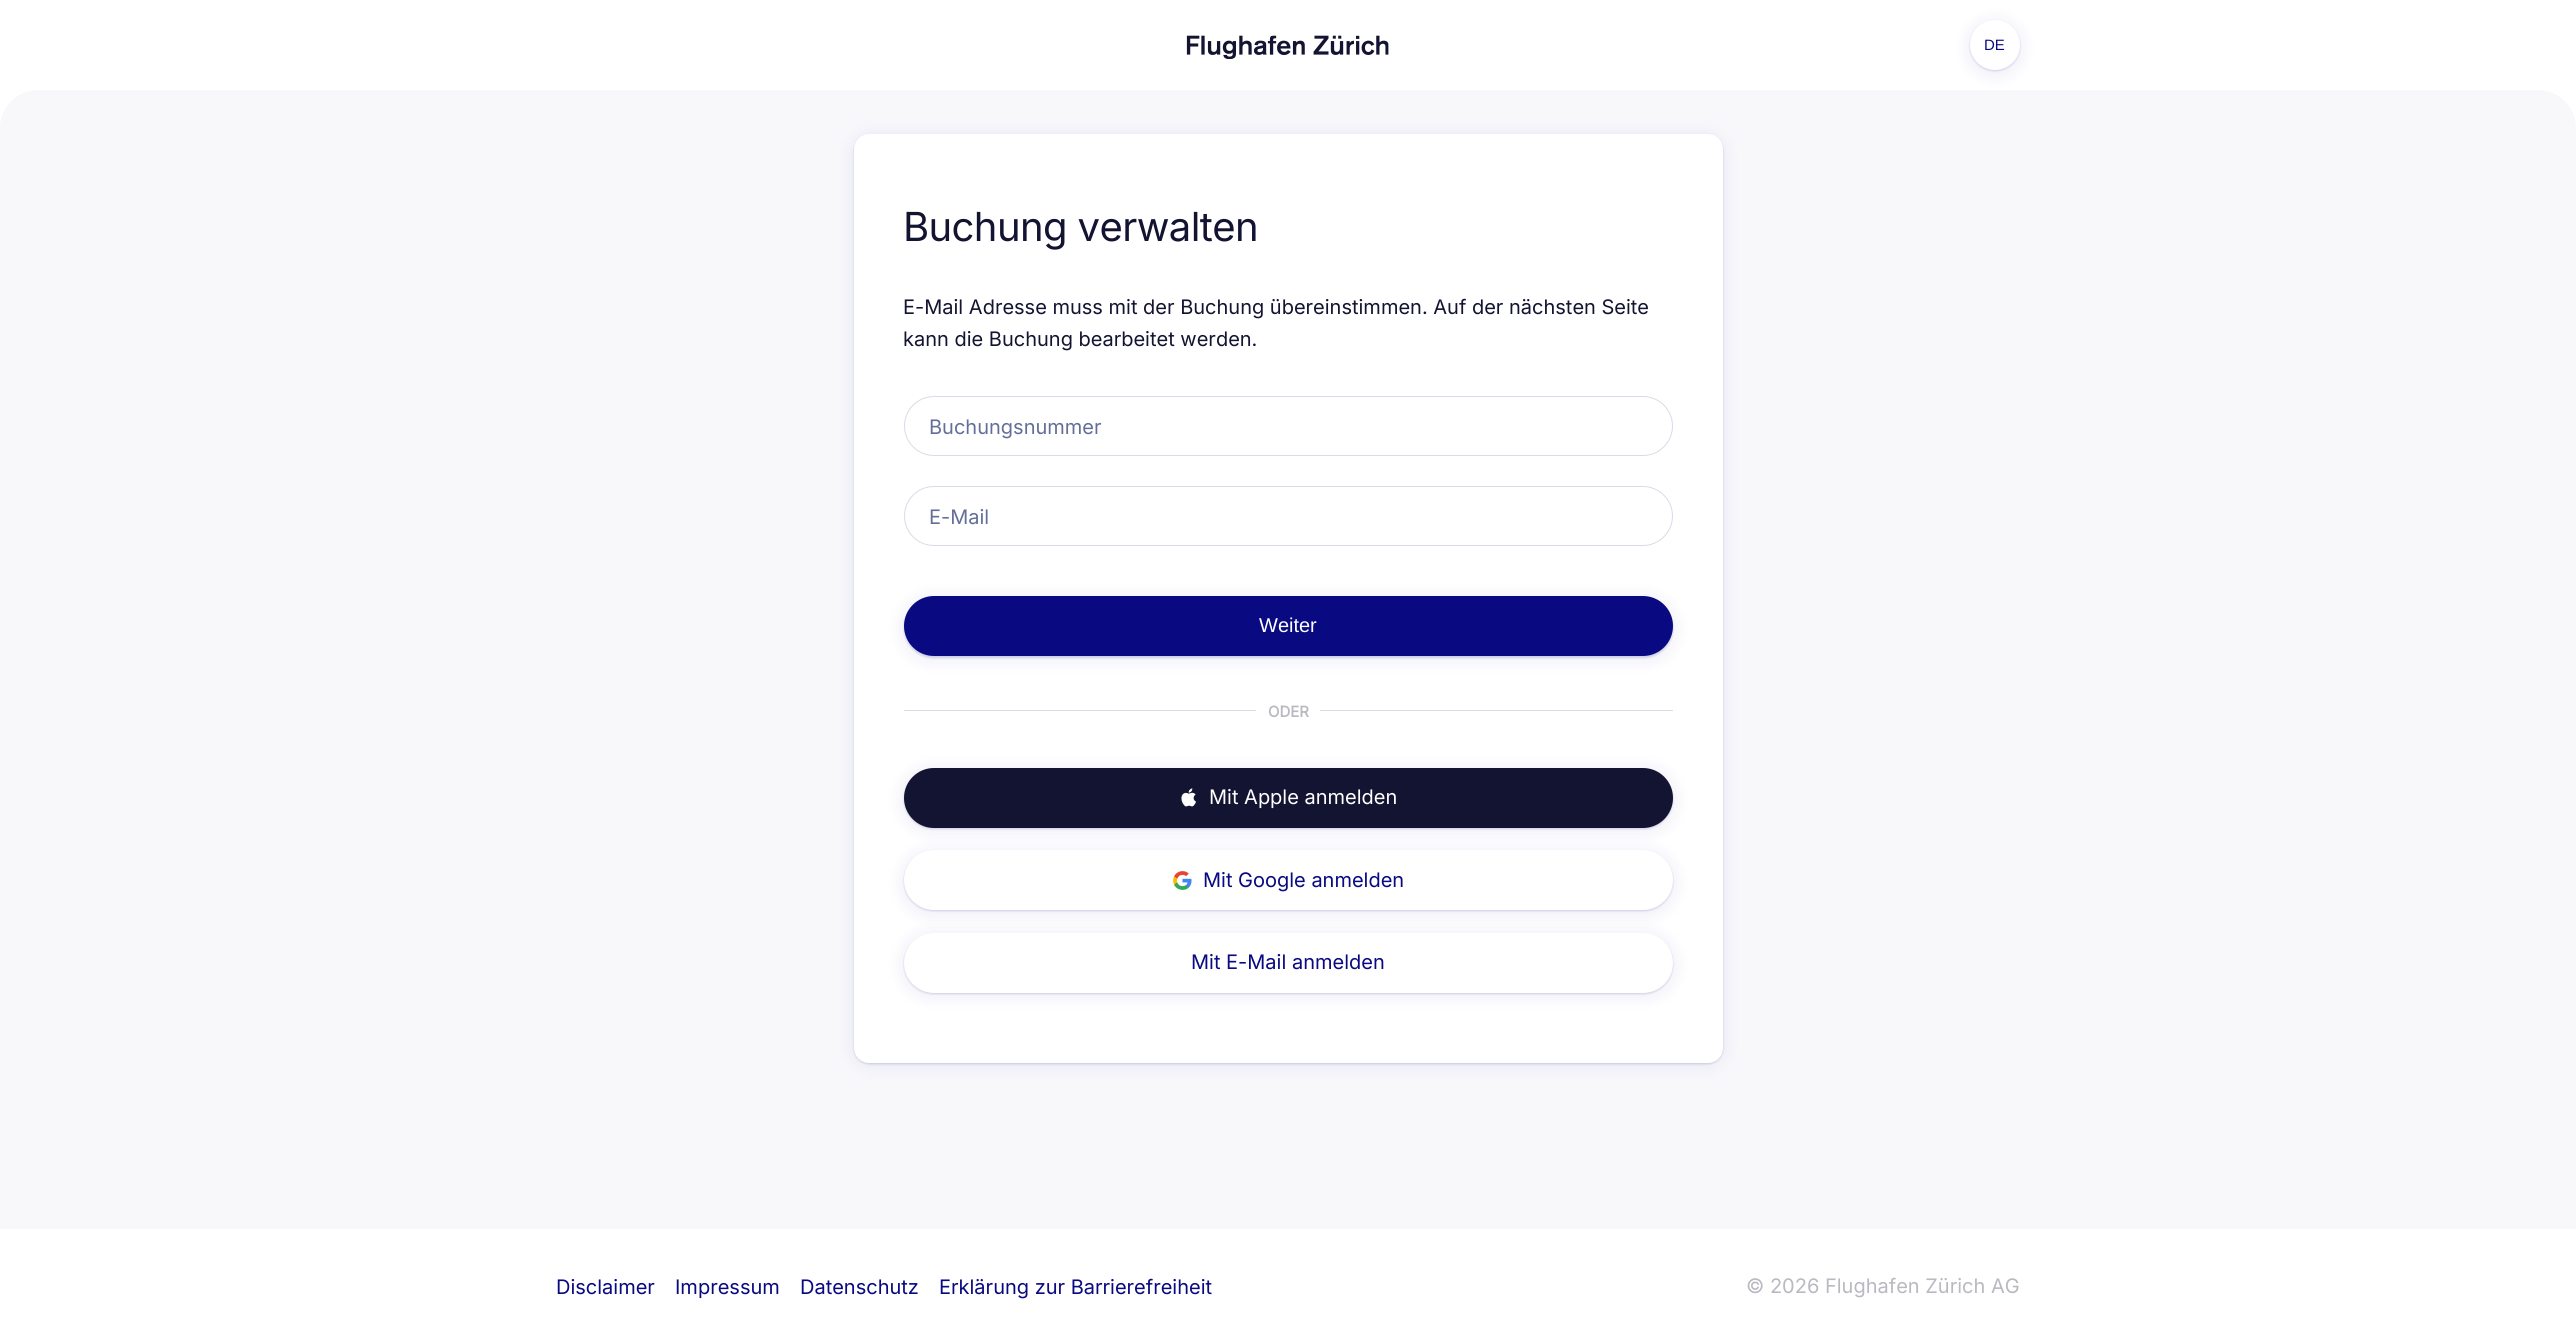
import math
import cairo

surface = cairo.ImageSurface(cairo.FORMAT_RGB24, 2576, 1344)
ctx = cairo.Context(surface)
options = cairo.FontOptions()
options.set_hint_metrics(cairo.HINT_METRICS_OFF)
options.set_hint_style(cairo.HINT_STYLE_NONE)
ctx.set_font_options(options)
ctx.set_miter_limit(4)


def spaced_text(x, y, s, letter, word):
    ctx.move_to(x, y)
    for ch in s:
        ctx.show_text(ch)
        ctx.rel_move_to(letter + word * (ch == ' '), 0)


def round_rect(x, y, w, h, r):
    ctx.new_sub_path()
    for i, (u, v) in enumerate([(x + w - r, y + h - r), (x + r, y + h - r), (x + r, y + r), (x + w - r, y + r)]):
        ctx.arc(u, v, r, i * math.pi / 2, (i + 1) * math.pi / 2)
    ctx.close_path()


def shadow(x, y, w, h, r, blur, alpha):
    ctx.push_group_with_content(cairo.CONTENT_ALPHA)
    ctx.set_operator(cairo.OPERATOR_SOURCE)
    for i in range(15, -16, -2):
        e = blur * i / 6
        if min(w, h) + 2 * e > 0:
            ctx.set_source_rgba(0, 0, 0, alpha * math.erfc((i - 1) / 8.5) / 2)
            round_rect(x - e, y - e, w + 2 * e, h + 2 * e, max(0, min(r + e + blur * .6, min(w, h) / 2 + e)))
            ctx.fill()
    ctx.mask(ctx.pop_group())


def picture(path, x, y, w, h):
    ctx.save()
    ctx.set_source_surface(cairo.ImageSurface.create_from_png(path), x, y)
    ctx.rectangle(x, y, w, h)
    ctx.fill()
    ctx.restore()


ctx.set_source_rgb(0.969, 0.969, 0.984)
ctx.paint()
ctx.set_source_rgb(1, 1, 1)
ctx.rectangle(0, 0, 2576, 128)
ctx.fill()
picture("img1.png", 1186, 35, 203, 24)
ctx.set_source_rgb(0.039, 0.039, 0.51)
shadow(1970, 21, 50, 50, 25, 1, 0.16)
ctx.set_source_rgb(0.969, 0.969, 0.984)
ctx.new_path()
ctx.move_to(38, 90)
ctx.line_to(2538, 90)
ctx.curve_to(2559, 90, 2576, 107, 2576, 128)
ctx.line_to(0, 128)
ctx.curve_to(0, 107, 17, 90, 38, 90)
ctx.close_path()
ctx.fill()
ctx.set_source_rgb(0.039, 0.039, 0.51)
shadow(1970, 23, 50, 50, 25, 10, 0.08)
ctx.set_source_rgb(1, 1, 1)
ctx.arc(1995, 45, 25, 0, 2 * math.pi)
ctx.fill()
ctx.select_font_face("Liberation Sans")
ctx.set_font_size(15)
ctx.set_source_rgb(0.039, 0.039, 0.51)
ctx.move_to(1984, 50)
ctx.show_text("DE")
ctx.set_source_rgb(0.039, 0.039, 0.51)
shadow(854, 135, 869, 929, 15, 1, 0.16)
shadow(854, 136, 869, 929, 15, 10, 0.08)
ctx.set_source_rgb(1, 1, 1)
round_rect(854, 134, 869, 929, 15)
ctx.fill()
ctx.select_font_face("Inter")
ctx.set_font_size(40)
ctx.set_source_rgb(0.078, 0.078, 0.196)
spaced_text(903, 241, "Buchung verwalten", -0.6, 0)
ctx.set_font_size(20)
ctx.move_to(903, 314)
ctx.show_text("E-Mail Adresse muss mit der Buchung übereinstimmen. Auf der nächsten Seite")
ctx.move_to(903, 346)
ctx.show_text("kann die Buchung bearbeitet werden.")
round_rect(904.5, 396.5, 768, 59, 29.5)
ctx.set_source_rgb(0.851, 0.863, 0.906)
ctx.set_line_width(1)
ctx.stroke()
ctx.set_source_rgb(0.388, 0.435, 0.6)
ctx.move_to(929, 434)
ctx.show_text("Buchungsnummer")
round_rect(904.5, 486.5, 768, 59, 29.5)
ctx.set_source_rgb(0.851, 0.863, 0.906)
ctx.stroke()
ctx.set_source_rgb(0.388, 0.435, 0.6)
ctx.move_to(929, 524)
ctx.show_text("E-Mail")
ctx.set_source_rgb(0.039, 0.039, 0.51)
shadow(904, 598, 769, 60, 30, 1, 0.16)
shadow(904, 599, 769, 60, 30, 10, 0.08)
ctx.set_source_rgb(0.039, 0.039, 0.51)
round_rect(904, 596, 769, 60, 30)
ctx.fill()
ctx.select_font_face("Liberation Sans")
ctx.set_source_rgb(1, 1, 1)
ctx.move_to(1259, 632)
ctx.show_text("Weiter")
ctx.set_source_rgb(0.851, 0.863, 0.906)
ctx.rectangle(904, 710, 769, 1)
ctx.fill()
ctx.set_source_rgb(1, 1, 1)
ctx.rectangle(1256, 710, 64, 1)
ctx.fill()
ctx.select_font_face("Inter", cairo.FONT_SLANT_NORMAL, cairo.FONT_WEIGHT_BOLD)
ctx.set_font_size(15)
ctx.set_source_rgb(0.725, 0.725, 0.761)
ctx.move_to(1268, 717)
ctx.show_text("ODER")
ctx.set_source_rgb(0.039, 0.039, 0.51)
shadow(904, 769, 769, 60, 30, 1, 0.16)
shadow(904, 770, 769, 60, 30, 10, 0.08)
ctx.set_source_rgb(0.078, 0.078, 0.196)
round_rect(904, 768, 769, 60, 30)
ctx.fill()
picture("img2.png", 1181, 788, 15, 19)
ctx.select_font_face("Inter")
ctx.set_font_size(20)
ctx.set_source_rgb(1, 1, 1)
ctx.move_to(1209, 804)
ctx.show_text("Mit Apple anmelden")
ctx.set_source_rgb(0.039, 0.039, 0.51)
shadow(904, 851, 769, 60, 30, 1, 0.16)
shadow(904, 853, 769, 60, 30, 10, 0.08)
ctx.set_source_rgb(1, 1, 1)
round_rect(904, 850, 769, 60, 30)
ctx.fill()
picture("img3.png", 1173, 871, 19, 19)
ctx.set_source_rgb(0.039, 0.039, 0.51)
ctx.move_to(1203, 887)
ctx.show_text("Mit Google anmelden")
ctx.set_source_rgb(0.039, 0.039, 0.51)
shadow(904, 934, 769, 60, 30, 1, 0.16)
shadow(904, 935, 769, 60, 30, 10, 0.08)
ctx.set_source_rgb(1, 1, 1)
round_rect(904, 933, 769, 60, 30)
ctx.fill()
ctx.set_source_rgb(0.039, 0.039, 0.51)
ctx.move_to(1191, 969)
ctx.show_text("Mit E-Mail anmelden")
ctx.set_source_rgb(1, 1, 1)
ctx.rectangle(0, 1229, 2576, 115)
ctx.fill()
ctx.set_source_rgb(0.039, 0.039, 0.51)
ctx.move_to(556, 1294)
ctx.show_text("Disclaimer")
ctx.move_to(675, 1294)
ctx.show_text("Impressum")
ctx.move_to(800, 1294)
ctx.show_text("Datenschutz")
ctx.move_to(939, 1294)
ctx.show_text("Erklärung zur Barrierefreiheit")
ctx.set_source_rgb(0.725, 0.725, 0.761)
ctx.move_to(1746, 1293)
ctx.show_text("© 2026 Flughafen Zürich AG")
surface.write_to_png("page.png")
